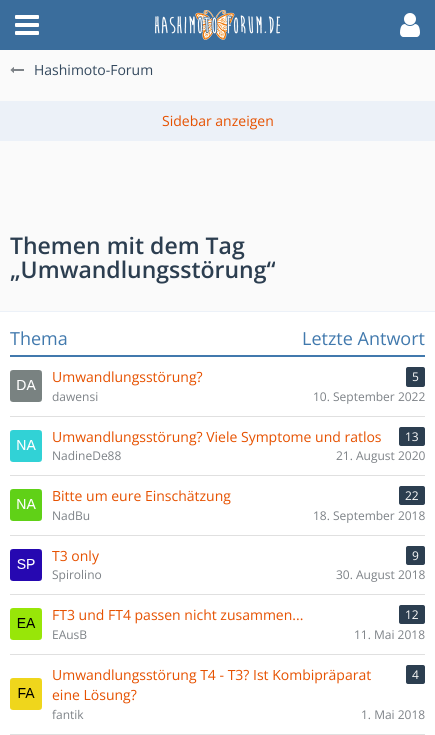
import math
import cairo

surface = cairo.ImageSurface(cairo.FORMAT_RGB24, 435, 735)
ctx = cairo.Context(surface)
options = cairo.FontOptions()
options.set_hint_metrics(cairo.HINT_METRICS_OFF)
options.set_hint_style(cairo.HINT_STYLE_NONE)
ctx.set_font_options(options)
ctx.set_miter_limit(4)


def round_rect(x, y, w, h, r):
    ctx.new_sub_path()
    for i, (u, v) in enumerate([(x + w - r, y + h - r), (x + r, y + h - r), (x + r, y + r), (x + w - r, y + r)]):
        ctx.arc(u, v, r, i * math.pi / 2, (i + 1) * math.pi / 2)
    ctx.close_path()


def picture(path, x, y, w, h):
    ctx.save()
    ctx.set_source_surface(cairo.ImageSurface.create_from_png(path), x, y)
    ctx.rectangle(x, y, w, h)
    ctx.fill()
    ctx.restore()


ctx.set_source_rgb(0.98, 0.98, 0.98)
ctx.paint()
ctx.set_source_rgb(0.227, 0.427, 0.612)
ctx.rectangle(0, 0, 435, 50)
ctx.fill()
picture("img1.png", 15, 15, 24, 20)
picture("img2.png", 400, 13, 20, 24)
picture("img3.png", 155, 10, 125, 30)
picture("img4.png", 10, 67, 14, 6)
ctx.select_font_face("Open Sans")
ctx.set_font_size(14)
ctx.set_source_rgb(0.204, 0.286, 0.369)
ctx.move_to(34, 75)
ctx.show_text("Hashimoto-Forum")
ctx.set_source_rgb(0.925, 0.945, 0.969)
ctx.rectangle(0, 101, 435, 40)
ctx.fill()
ctx.set_source_rgb(0.902, 0.318, 0)
ctx.move_to(162, 126)
ctx.show_text("Sidebar anzeigen")
ctx.select_font_face("Open Sans SemiBold")
ctx.set_font_size(23)
ctx.set_source_rgb(0.173, 0.243, 0.314)
ctx.move_to(10, 254)
ctx.show_text("Themen mit dem Tag")
ctx.move_to(10, 278)
ctx.show_text("„Umwandlungsstörung“")
ctx.set_source_rgb(1, 1, 1)
ctx.rectangle(0, 312, 435, 423)
ctx.fill()
ctx.set_source_rgb(0.925, 0.945, 0.969)
ctx.rectangle(0, 311, 435, 1)
ctx.fill()
ctx.set_source_rgb(0.255, 0.475, 0.678)
ctx.rectangle(10, 355, 415, 2)
ctx.fill()
ctx.select_font_face("Open Sans")
ctx.set_font_size(18)
ctx.move_to(10, 345)
ctx.show_text("Thema")
ctx.move_to(302, 345)
ctx.show_text("Letzte Antwort")
picture("img5.png", 10, 370, 32, 32)
ctx.set_font_size(14)
ctx.set_source_rgb(0.902, 0.318, 0)
ctx.move_to(52, 382)
ctx.show_text("Umwandlungsstörung?")
ctx.set_source_rgb(0.173, 0.243, 0.314)
round_rect(406, 367, 19, 20, 2)
ctx.fill()
ctx.set_font_size(12)
ctx.set_source_rgb(0.98, 0.98, 0.98)
ctx.move_to(412, 381)
ctx.show_text("5")
ctx.set_source_rgb(0.49, 0.51, 0.529)
ctx.move_to(52, 401)
ctx.show_text("dawensi")
ctx.move_to(313, 401)
ctx.show_text("10. September 2022")
ctx.set_source_rgb(0.878, 0.878, 0.878)
ctx.rectangle(10, 416, 415, 1)
ctx.fill()
picture("img6.png", 10, 430, 32, 32)
ctx.set_font_size(14)
ctx.set_source_rgb(0.902, 0.318, 0)
ctx.move_to(52, 442)
ctx.show_text("Umwandlungsstörung? Viele Symptome und ratlos")
ctx.set_source_rgb(0.173, 0.243, 0.314)
round_rect(399, 427, 26, 19, 2)
ctx.fill()
ctx.set_font_size(12)
ctx.set_source_rgb(0.98, 0.98, 0.98)
ctx.move_to(405, 441)
ctx.show_text("13")
ctx.set_source_rgb(0.49, 0.51, 0.529)
ctx.move_to(52, 460)
ctx.show_text("NadineDe88")
ctx.move_to(336, 460)
ctx.show_text("21. August 2020")
ctx.set_source_rgb(0.878, 0.878, 0.878)
ctx.rectangle(10, 475, 415, 1)
ctx.fill()
picture("img7.png", 10, 489, 32, 32)
ctx.set_font_size(14)
ctx.set_source_rgb(0.902, 0.318, 0)
ctx.move_to(52, 501)
ctx.show_text("Bitte um eure Einschätzung")
ctx.set_source_rgb(0.173, 0.243, 0.314)
round_rect(399, 486, 26, 19, 2)
ctx.fill()
ctx.set_font_size(12)
ctx.set_source_rgb(0.98, 0.98, 0.98)
ctx.move_to(405, 500)
ctx.show_text("22")
ctx.set_source_rgb(0.49, 0.51, 0.529)
ctx.move_to(52, 520)
ctx.show_text("NadBu")
ctx.move_to(313, 520)
ctx.show_text("18. September 2018")
ctx.set_source_rgb(0.878, 0.878, 0.878)
ctx.rectangle(10, 535, 415, 1)
ctx.fill()
picture("img8.png", 10, 549, 32, 32)
ctx.set_font_size(14)
ctx.set_source_rgb(0.902, 0.318, 0)
ctx.move_to(52, 561)
ctx.show_text("T3 only")
ctx.set_source_rgb(0.173, 0.243, 0.314)
round_rect(406, 546, 19, 19, 2)
ctx.fill()
ctx.set_font_size(12)
ctx.set_source_rgb(0.98, 0.98, 0.98)
ctx.move_to(412, 560)
ctx.show_text("9")
ctx.set_source_rgb(0.49, 0.51, 0.529)
ctx.move_to(52, 579)
ctx.show_text("Spirolino")
ctx.move_to(336, 579)
ctx.show_text("30. August 2018")
ctx.set_source_rgb(0.878, 0.878, 0.878)
ctx.rectangle(10, 594, 415, 1)
ctx.fill()
picture("img9.png", 10, 608, 32, 32)
ctx.set_font_size(14)
ctx.set_source_rgb(0.902, 0.318, 0)
ctx.move_to(52, 620)
ctx.show_text("FT3 und FT4 passen nicht zusammen...")
ctx.set_source_rgb(0.173, 0.243, 0.314)
round_rect(399, 605, 26, 19, 2)
ctx.fill()
ctx.set_font_size(12)
ctx.set_source_rgb(0.98, 0.98, 0.98)
ctx.move_to(405, 619)
ctx.show_text("12")
ctx.set_source_rgb(0.49, 0.51, 0.529)
ctx.move_to(52, 639)
ctx.show_text("EAusB")
ctx.move_to(354, 639)
ctx.show_text("11. Mai 2018")
ctx.set_source_rgb(0.878, 0.878, 0.878)
ctx.rectangle(10, 654, 415, 1)
ctx.fill()
picture("img10.png", 10, 678, 32, 32)
ctx.set_font_size(14)
ctx.set_source_rgb(0.902, 0.318, 0)
ctx.move_to(52, 680)
ctx.show_text("Umwandlungsstörung T4 - T3? Ist Kombipräparat")
ctx.move_to(52, 700)
ctx.show_text("eine Lösung?")
ctx.set_source_rgb(0.173, 0.243, 0.314)
round_rect(406, 665, 19, 19, 2)
ctx.fill()
ctx.set_font_size(12)
ctx.set_source_rgb(0.98, 0.98, 0.98)
ctx.move_to(412, 679)
ctx.show_text("4")
ctx.set_source_rgb(0.49, 0.51, 0.529)
ctx.move_to(52, 719)
ctx.show_text("fantik")
ctx.move_to(361, 719)
ctx.show_text("1. Mai 2018")
ctx.set_source_rgb(0.878, 0.878, 0.878)
ctx.rectangle(10, 734, 415, 1)
ctx.fill()
surface.write_to_png("page.png")
